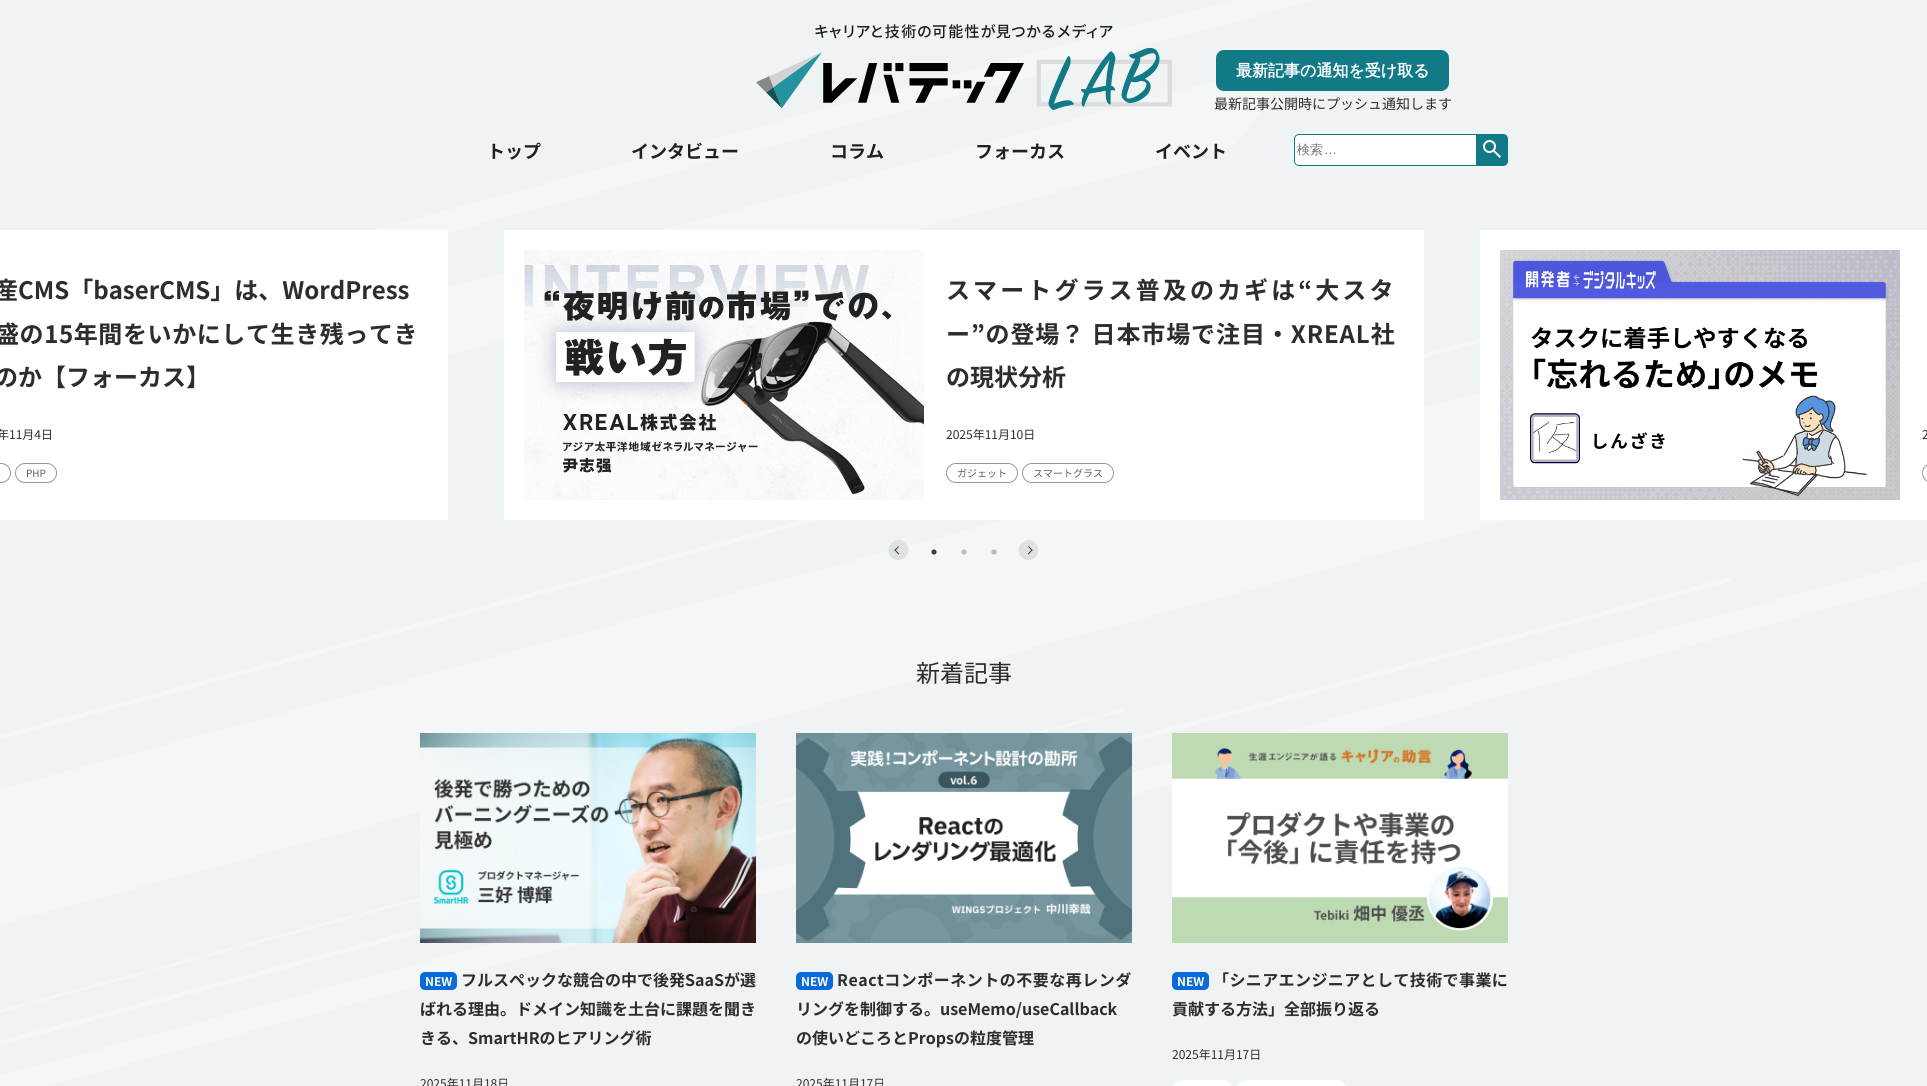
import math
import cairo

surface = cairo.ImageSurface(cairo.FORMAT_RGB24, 1927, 1086)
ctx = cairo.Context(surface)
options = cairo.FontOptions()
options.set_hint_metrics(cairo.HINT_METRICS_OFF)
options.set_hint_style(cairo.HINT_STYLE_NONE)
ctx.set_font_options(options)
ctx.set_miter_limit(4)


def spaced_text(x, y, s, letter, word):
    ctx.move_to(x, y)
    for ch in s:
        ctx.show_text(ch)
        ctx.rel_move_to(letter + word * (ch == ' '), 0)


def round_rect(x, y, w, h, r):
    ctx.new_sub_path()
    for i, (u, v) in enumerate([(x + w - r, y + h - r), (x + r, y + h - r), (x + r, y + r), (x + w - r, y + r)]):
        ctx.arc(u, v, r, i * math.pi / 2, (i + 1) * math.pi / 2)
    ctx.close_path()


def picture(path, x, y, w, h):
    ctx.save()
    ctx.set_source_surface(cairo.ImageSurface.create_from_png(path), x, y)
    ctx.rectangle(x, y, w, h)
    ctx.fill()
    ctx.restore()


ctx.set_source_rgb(0.941, 0.953, 0.953)
ctx.paint()
picture("img1.png", 0, 0, 1927, 1086)
picture("img2.png", 756, 24, 416, 86)
ctx.set_source_rgb(0.071, 0.475, 0.529)
round_rect(1216, 50, 233, 41, 8)
ctx.fill()
ctx.select_font_face("WenQuanYi Zen Hei", cairo.FONT_SLANT_NORMAL, cairo.FONT_WEIGHT_BOLD)
ctx.set_font_size(16)
ctx.set_source_rgb(1, 1, 1)
ctx.move_to(1236, 76)
ctx.show_text("最新記事の通知を受け取る")
ctx.select_font_face("Noto Sans JP")
ctx.set_font_size(14)
ctx.set_source_rgb(0.176, 0.176, 0.176)
ctx.move_to(1214, 109)
ctx.show_text("最新記事公開時にプッシュ通知します")
ctx.select_font_face("Noto Sans JP", cairo.FONT_SLANT_NORMAL, cairo.FONT_WEIGHT_BOLD)
ctx.set_font_size(18)
ctx.set_source_rgb(0.125, 0.125, 0.125)
ctx.move_to(487, 158)
ctx.show_text("トップ")
ctx.move_to(631, 158)
ctx.show_text("インタビュー")
ctx.move_to(830, 158)
ctx.show_text("コラム")
ctx.move_to(975, 158)
ctx.show_text("フォーカス")
ctx.move_to(1155, 158)
ctx.show_text("イベント")
ctx.set_source_rgb(1, 1, 1)
ctx.new_path()
ctx.move_to(1299, 134.5)
ctx.line_to(1476.5, 134.5)
ctx.line_to(1476.5, 165.5)
ctx.line_to(1299, 165.5)
ctx.curve_to(1296.5, 165.5, 1294.5, 163.5, 1294.5, 161)
ctx.line_to(1294.5, 139)
ctx.curve_to(1294.5, 136.5, 1296.5, 134.5, 1299, 134.5)
ctx.close_path()
ctx.fill_preserve()
ctx.set_source_rgb(0.071, 0.475, 0.529)
ctx.set_line_width(1)
ctx.stroke()
ctx.select_font_face("WenQuanYi Zen Hei Medium")
ctx.set_font_size(13)
ctx.set_source_rgb(0.459, 0.459, 0.459)
ctx.move_to(1297, 154)
ctx.show_text("検索")
ctx.select_font_face("Liberation Sans")
ctx.move_to(1324, 154)
ctx.show_text("…")
ctx.set_source_rgb(0.071, 0.475, 0.529)
ctx.new_path()
ctx.move_to(1477, 134)
ctx.line_to(1503, 134)
ctx.curve_to(1506, 134, 1508, 136, 1508, 139)
ctx.line_to(1508, 161)
ctx.curve_to(1508, 164, 1506, 166, 1503, 166)
ctx.line_to(1477, 166)
ctx.close_path()
ctx.fill()
picture("img3.png", 1483, 140, 18, 18)
ctx.set_source_rgb(1, 1, 1)
ctx.rectangle(0, 230, 448, 290)
ctx.fill()
ctx.select_font_face("Noto Sans JP", cairo.FONT_SLANT_NORMAL, cairo.FONT_WEIGHT_BOLD)
ctx.set_font_size(24)
ctx.set_source_rgb(0.176, 0.176, 0.176)
ctx.move_to(-6, 299)
ctx.show_text("産CMS「baserCMS」は、WordPress")
spaced_text(-5, 343, "盛の15年間をいかにして生き残ってき", 0.6, 0)
ctx.move_to(-6, 386)
ctx.show_text("のか【フォーカス】")
ctx.select_font_face("Noto Sans JP")
ctx.set_font_size(12)
ctx.move_to(-3, 439)
ctx.show_text("年11月4日")
round_rect(-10.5, 463.5, 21, 19, 9.5)
ctx.set_source_rgb(0.592, 0.592, 0.592)
ctx.stroke()
round_rect(15.5, 463.5, 41, 19, 9.5)
ctx.stroke()
ctx.set_font_size(10)
ctx.set_source_rgb(0.369, 0.369, 0.369)
ctx.move_to(26, 477)
ctx.show_text("PHP")
ctx.set_source_rgb(1, 1, 1)
ctx.rectangle(504, 230, 920, 290)
ctx.fill()
picture("img4.png", 524, 250, 400, 250)
ctx.select_font_face("Noto Sans JP", cairo.FONT_SLANT_NORMAL, cairo.FONT_WEIGHT_BOLD)
ctx.set_font_size(24)
ctx.set_source_rgb(0.176, 0.176, 0.176)
spaced_text(946, 299, "スマートグラス普及のカギは“大スタ", 3.1, 0)
spaced_text(946, 343, "ー”の登場？ 日本市場で注目・XREAL社", 0.9, 0)
ctx.move_to(946, 386)
ctx.show_text("の現状分析")
ctx.select_font_face("Noto Sans JP")
ctx.set_font_size(12)
ctx.move_to(946, 439)
ctx.show_text("2025年11月10日")
round_rect(946.5, 463.5, 71, 19, 9.5)
ctx.set_source_rgb(0.592, 0.592, 0.592)
ctx.stroke()
ctx.set_font_size(10)
ctx.set_source_rgb(0.369, 0.369, 0.369)
ctx.move_to(957, 477)
ctx.show_text("ガジェット")
round_rect(1022.5, 463.5, 91, 19, 9.5)
ctx.set_source_rgb(0.592, 0.592, 0.592)
ctx.stroke()
ctx.set_source_rgb(0.369, 0.369, 0.369)
ctx.move_to(1033, 477)
ctx.show_text("スマートグラス")
ctx.set_source_rgb(1, 1, 1)
ctx.rectangle(1480, 230, 447, 290)
ctx.fill()
picture("img5.png", 1500, 250, 400, 250)
ctx.set_font_size(12)
ctx.set_source_rgb(0.176, 0.176, 0.176)
ctx.move_to(1922, 439)
ctx.show_text("2")
round_rect(1922.5, 463.5, 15, 19, 9.5)
ctx.set_source_rgb(0.592, 0.592, 0.592)
ctx.stroke()
ctx.set_source_rgb(0.882, 0.882, 0.882)
ctx.new_path()
ctx.move_to(891.5, 557)
ctx.curve_to(882, 548, 896.5, 533.5, 905.5, 543)
ctx.curve_to(915, 552.5, 900.5, 566.5, 891.5, 557)
ctx.close_path()
ctx.fill()
ctx.set_source_rgb(0.176, 0.176, 0.176)
ctx.new_path()
ctx.move_to(898.5, 554.5)
ctx.line_to(894.5, 550)
ctx.line_to(895, 549.5)
ctx.line_to(899, 553.5)
ctx.close_path()
ctx.fill()
ctx.new_path()
ctx.move_to(895, 551)
ctx.line_to(894.5, 550)
ctx.line_to(898.5, 546)
ctx.line_to(899, 546.5)
ctx.close_path()
ctx.fill()
picture("img6.png", 931, 549, 6, 6)
picture("img7.png", 961, 549, 6, 6)
picture("img7.png", 991, 549, 6, 6)
ctx.set_source_rgb(0.882, 0.882, 0.882)
ctx.new_path()
ctx.move_to(1035.5, 543)
ctx.curve_to(1045, 552.5, 1030.5, 566.5, 1021.5, 557)
ctx.curve_to(1012, 548, 1026.5, 533.5, 1035.5, 543)
ctx.close_path()
ctx.fill()
ctx.set_source_rgb(0.176, 0.176, 0.176)
ctx.new_path()
ctx.move_to(1028.5, 546)
ctx.line_to(1032.5, 550)
ctx.line_to(1032, 551)
ctx.line_to(1028, 546.5)
ctx.close_path()
ctx.fill()
ctx.new_path()
ctx.move_to(1032, 549.5)
ctx.line_to(1032.5, 550)
ctx.line_to(1028.5, 554.5)
ctx.line_to(1028, 553.5)
ctx.close_path()
ctx.fill()
ctx.set_font_size(24)
ctx.move_to(916, 682)
ctx.show_text("新着記事")
picture("img8.png", 420, 733, 336, 210)
ctx.set_source_rgb(0.035, 0.412, 0.855)
round_rect(420, 972, 37, 18, 5)
ctx.fill()
ctx.select_font_face("Noto Sans JP", cairo.FONT_SLANT_NORMAL, cairo.FONT_WEIGHT_BOLD)
ctx.set_font_size(12)
ctx.set_source_rgb(1, 1, 1)
ctx.move_to(425, 986)
ctx.show_text("NEW")
ctx.set_font_size(16)
ctx.set_source_rgb(0.176, 0.176, 0.176)
ctx.move_to(461, 986)
ctx.show_text("フルスペックな競合の中で後発SaaSが選")
ctx.move_to(420, 1015)
ctx.show_text("ばれる理由。ドメイン知識を土台に課題を聞き")
ctx.move_to(420, 1044)
ctx.show_text("きる、SmartHRのヒアリング術")
ctx.select_font_face("Noto Sans JP")
ctx.set_font_size(12)
ctx.move_to(420, 1088)
ctx.show_text("2025年11月18日")
picture("img9.png", 796, 733, 336, 210)
ctx.set_source_rgb(0.035, 0.412, 0.855)
round_rect(796, 972, 37, 18, 5)
ctx.fill()
ctx.select_font_face("Noto Sans JP", cairo.FONT_SLANT_NORMAL, cairo.FONT_WEIGHT_BOLD)
ctx.set_source_rgb(1, 1, 1)
ctx.move_to(801, 986)
ctx.show_text("NEW")
ctx.set_font_size(16)
ctx.set_source_rgb(0.176, 0.176, 0.176)
spaced_text(837, 986, "Reactコンポーネントの不要な再レンダ", 0.5, 0)
ctx.move_to(796, 1015)
ctx.show_text("リングを制御する。useMemo/useCallback")
ctx.move_to(796, 1044)
ctx.show_text("の使いどころとPropsの粒度管理")
ctx.select_font_face("Noto Sans JP")
ctx.set_font_size(12)
ctx.move_to(796, 1088)
ctx.show_text("2025年11月17日")
picture("img10.png", 1172, 733, 336, 210)
ctx.set_source_rgb(0.035, 0.412, 0.855)
round_rect(1172, 972, 37, 18, 5)
ctx.fill()
ctx.select_font_face("Noto Sans JP", cairo.FONT_SLANT_NORMAL, cairo.FONT_WEIGHT_BOLD)
ctx.set_source_rgb(1, 1, 1)
ctx.move_to(1177, 986)
ctx.show_text("NEW")
ctx.set_font_size(16)
ctx.set_source_rgb(0.176, 0.176, 0.176)
spaced_text(1213, 986, "「シニアエンジニアとして技術で事業に", 0.4, 0)
ctx.move_to(1172, 1015)
ctx.show_text("貢献する方法」全部振り返る")
ctx.select_font_face("Noto Sans JP")
ctx.set_font_size(12)
ctx.move_to(1172, 1059)
ctx.show_text("2025年11月17日")
ctx.set_source_rgb(1, 1, 1)
round_rect(1172, 1080, 60, 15, 9)
ctx.fill()
round_rect(1236, 1080, 110, 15, 9)
ctx.fill()
surface.write_to_png("page.png")
